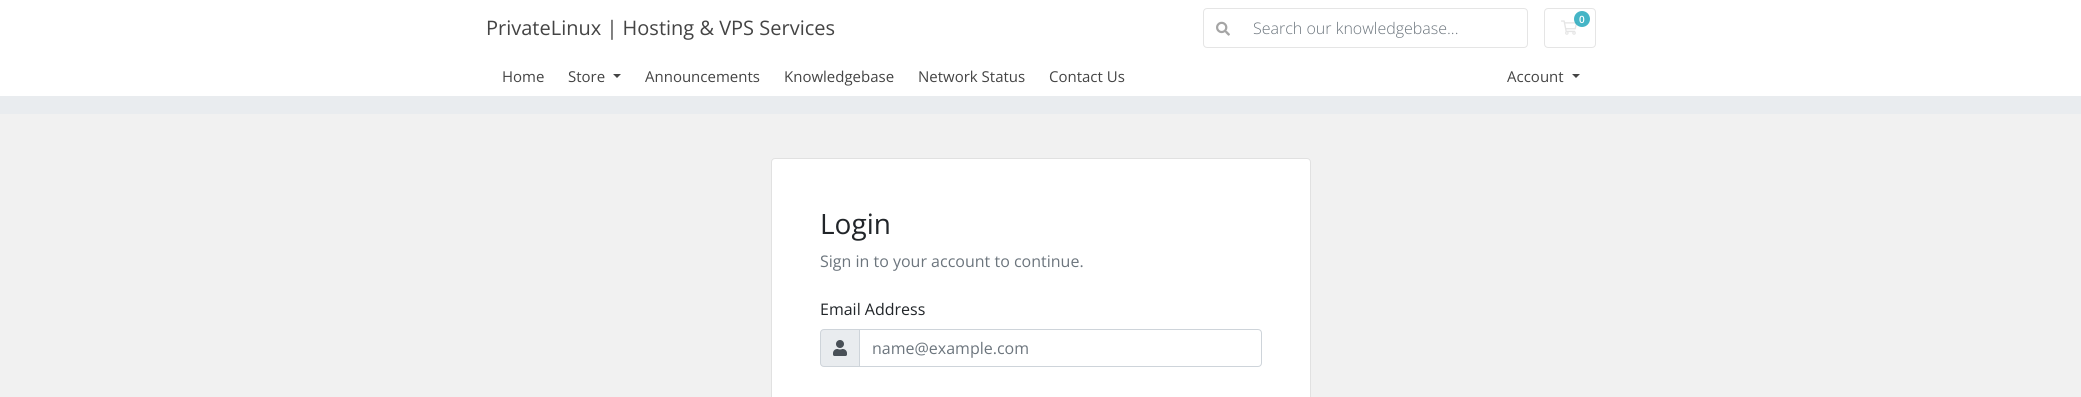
import math
import cairo

surface = cairo.ImageSurface(cairo.FORMAT_RGB24, 2081, 397)
ctx = cairo.Context(surface)
options = cairo.FontOptions()
options.set_hint_metrics(cairo.HINT_METRICS_OFF)
options.set_hint_style(cairo.HINT_STYLE_NONE)
ctx.set_font_options(options)
ctx.set_miter_limit(4)


def round_rect(x, y, w, h, r):
    ctx.new_sub_path()
    for i, (u, v) in enumerate([(x + w - r, y + h - r), (x + r, y + h - r), (x + r, y + r), (x + w - r, y + r)]):
        ctx.arc(u, v, r, i * math.pi / 2, (i + 1) * math.pi / 2)
    ctx.close_path()


def picture(path, x, y, w, h):
    ctx.save()
    ctx.set_source_surface(cairo.ImageSurface.create_from_png(path), x, y)
    ctx.rectangle(x, y, w, h)
    ctx.fill()
    ctx.restore()


ctx.set_source_rgb(0.945, 0.945, 0.945)
ctx.paint()
ctx.set_source_rgb(1, 1, 1)
ctx.rectangle(0, 0, 2081, 96)
ctx.fill()
ctx.select_font_face("Open Sans")
ctx.set_font_size(20)
ctx.set_source_rgb(0.267, 0.267, 0.267)
ctx.move_to(486, 35)
ctx.show_text("PrivateLinux | Hosting & VPS Services")
round_rect(1203.5, 8.5, 324, 39, 3.5)
ctx.set_source_rgb(0.898, 0.898, 0.898)
ctx.set_line_width(1)
ctx.stroke()
picture("img1.png", 1216, 21, 14, 15)
ctx.select_font_face("Open Sans Light")
ctx.set_font_size(16)
ctx.set_source_rgb(0.424, 0.459, 0.49)
ctx.move_to(1253, 34)
ctx.show_text("Search our knowledgebase...")
round_rect(1544.5, 8.5, 51, 39, 3.5)
ctx.set_source_rgb(0.898, 0.898, 0.898)
ctx.stroke()
picture("img2.png", 1561, 20, 16, 15)
ctx.set_source_rgba(0.09, 0.635, 0.722, 0.8)
ctx.arc(1582, 19, 8, 0, 2 * math.pi)
ctx.fill()
ctx.select_font_face("Open Sans SemiBold")
ctx.set_font_size(10)
ctx.set_source_rgb(1, 1, 1)
ctx.move_to(1579, 23)
ctx.show_text("0")
ctx.select_font_face("Open Sans")
ctx.set_font_size(15)
ctx.set_source_rgb(0.267, 0.267, 0.267)
ctx.move_to(502, 82)
ctx.show_text("Home")
ctx.move_to(568, 82)
ctx.show_text("Store")
ctx.new_path()
ctx.move_to(613, 74)
ctx.line_to(621, 74)
ctx.line_to(617, 78)
ctx.close_path()
ctx.fill()
ctx.move_to(645, 82)
ctx.show_text("Announcements")
ctx.move_to(784, 82)
ctx.show_text("Knowledgebase")
ctx.move_to(918, 82)
ctx.show_text("Network Status")
ctx.move_to(1049, 82)
ctx.show_text("Contact Us")
ctx.move_to(1507, 82)
ctx.show_text("Account")
ctx.new_path()
ctx.move_to(1572, 74)
ctx.line_to(1580, 74)
ctx.line_to(1576, 78)
ctx.close_path()
ctx.fill()
ctx.set_source_rgb(0.914, 0.925, 0.937)
ctx.rectangle(0, 96, 2081, 18)
ctx.fill()
ctx.set_source_rgb(1, 1, 1)
round_rect(771, 158, 540, 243, 4)
ctx.fill()
round_rect(771.5, 158.5, 539, 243, 3.5)
ctx.set_source_rgba(0, 0, 0, 0.12)
ctx.stroke()
ctx.set_font_size(28)
ctx.set_source_rgb(0.129, 0.145, 0.161)
ctx.move_to(820, 234)
ctx.show_text("Login")
ctx.set_font_size(16)
ctx.set_source_rgb(0.424, 0.459, 0.49)
ctx.move_to(820, 267)
ctx.show_text("Sign in to your account to continue.")
ctx.set_source_rgb(0.129, 0.145, 0.161)
ctx.move_to(820, 315)
ctx.show_text("Email Address")
ctx.set_source_rgb(0.914, 0.925, 0.937)
ctx.new_path()
ctx.move_to(824, 329.5)
ctx.line_to(859.5, 329.5)
ctx.line_to(859.5, 366.5)
ctx.line_to(824, 366.5)
ctx.curve_to(822, 366.5, 820.5, 365, 820.5, 363)
ctx.line_to(820.5, 333)
ctx.curve_to(820.5, 331, 822, 329.5, 824, 329.5)
ctx.close_path()
ctx.fill_preserve()
ctx.set_source_rgb(0.808, 0.831, 0.855)
ctx.stroke()
picture("img3.png", 833, 340, 14, 16)
ctx.new_path()
ctx.move_to(859.5, 329.5)
ctx.line_to(1258, 329.5)
ctx.curve_to(1260, 329.5, 1261.5, 331, 1261.5, 333)
ctx.line_to(1261.5, 363)
ctx.curve_to(1261.5, 365, 1260, 366.5, 1258, 366.5)
ctx.line_to(859.5, 366.5)
ctx.close_path()
ctx.stroke()
ctx.set_source_rgb(0.424, 0.459, 0.49)
ctx.move_to(872, 354)
ctx.show_text("name@example.com")
surface.write_to_png("page.png")
